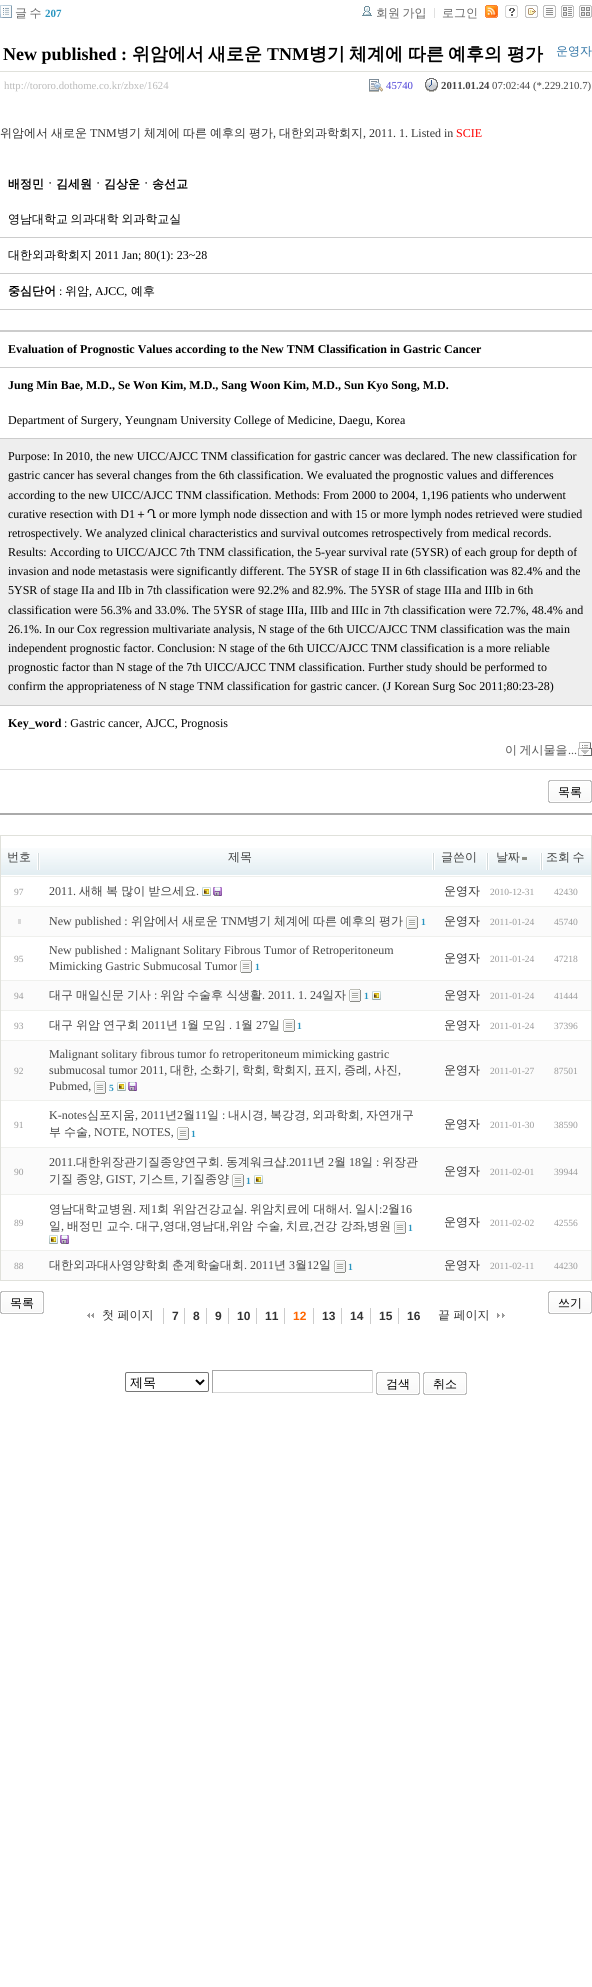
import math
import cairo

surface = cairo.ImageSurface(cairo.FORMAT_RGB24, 592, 1987)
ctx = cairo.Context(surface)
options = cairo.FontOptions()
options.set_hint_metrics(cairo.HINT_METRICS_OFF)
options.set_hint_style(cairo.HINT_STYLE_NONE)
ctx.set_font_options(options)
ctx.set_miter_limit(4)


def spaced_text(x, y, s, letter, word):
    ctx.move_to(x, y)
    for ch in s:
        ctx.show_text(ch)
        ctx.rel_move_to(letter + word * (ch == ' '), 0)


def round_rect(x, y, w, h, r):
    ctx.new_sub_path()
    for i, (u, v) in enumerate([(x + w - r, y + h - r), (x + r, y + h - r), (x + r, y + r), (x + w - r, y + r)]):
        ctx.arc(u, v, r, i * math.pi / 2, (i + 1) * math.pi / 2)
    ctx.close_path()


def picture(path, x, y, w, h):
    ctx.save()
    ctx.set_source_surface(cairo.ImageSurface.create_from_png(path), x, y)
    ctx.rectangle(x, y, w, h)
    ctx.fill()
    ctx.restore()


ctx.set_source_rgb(1, 1, 1)
ctx.paint()
picture("img1.png", 0, 5, 12, 13)
ctx.select_font_face("WenQuanYi Zen Hei Medium")
ctx.set_font_size(12)
ctx.set_source_rgb(0.4, 0.4, 0.4)
spaced_text(15, 17, "글 수", 0, -1)
ctx.select_font_face("Liberation Serif", cairo.FONT_SLANT_NORMAL, cairo.FONT_WEIGHT_BOLD)
ctx.set_font_size(11)
ctx.set_source_rgb(0.157, 0.584, 0.753)
ctx.move_to(45, 17)
ctx.show_text("207")
picture("img2.png", 362, 6, 10, 10)
ctx.select_font_face("WenQuanYi Zen Hei Medium")
ctx.set_font_size(12)
ctx.set_source_rgb(0.4, 0.4, 0.4)
spaced_text(376, 17, "회원 가입", 0, -1)
ctx.move_to(442, 17)
ctx.show_text("로그인")
ctx.set_source_rgb(0.878, 0.878, 0.878)
ctx.rectangle(434, 8, 1, 10)
ctx.fill()
picture("img3.png", 485, 5, 13, 13)
picture("img4.png", 505, 5, 13, 13)
picture("img5.png", 525, 5, 13, 13)
picture("img6.png", 543, 5, 13, 13)
picture("img7.png", 561, 5, 13, 13)
picture("img8.png", 579, 5, 13, 13)
ctx.set_source_rgb(0.667, 0.667, 0.667)
ctx.rectangle(0, 813, 592, 2)
ctx.fill()
ctx.set_source_rgb(0.878, 0.882, 0.859)
ctx.rectangle(0, 71, 592, 1)
ctx.fill()
ctx.select_font_face("Liberation Serif", cairo.FONT_SLANT_NORMAL, cairo.FONT_WEIGHT_BOLD)
ctx.set_font_size(18)
ctx.set_source_rgb(0, 0, 0)
ctx.move_to(3, 60)
ctx.show_text("New published :")
ctx.select_font_face("WenQuanYi Zen Hei", cairo.FONT_SLANT_NORMAL, cairo.FONT_WEIGHT_BOLD)
ctx.move_to(132, 60)
ctx.show_text("위암에서")
ctx.move_to(208, 60)
ctx.show_text("새로운")
ctx.select_font_face("Liberation Serif", cairo.FONT_SLANT_NORMAL, cairo.FONT_WEIGHT_BOLD)
ctx.move_to(267, 60)
ctx.show_text("TNM")
ctx.select_font_face("WenQuanYi Zen Hei", cairo.FONT_SLANT_NORMAL, cairo.FONT_WEIGHT_BOLD)
ctx.move_to(309, 60)
ctx.show_text("병기")
ctx.move_to(349, 60)
ctx.show_text("체계에")
ctx.move_to(408, 60)
ctx.show_text("따른")
ctx.move_to(448, 60)
ctx.show_text("예후의")
ctx.move_to(507, 60)
ctx.show_text("평가")
ctx.select_font_face("WenQuanYi Zen Hei Medium")
ctx.set_font_size(12)
ctx.set_source_rgb(0.188, 0.455, 0.647)
ctx.move_to(556, 55)
ctx.show_text("운영자")
ctx.select_font_face("Liberation Serif")
ctx.set_font_size(10.75)
ctx.set_source_rgb(0.733, 0.733, 0.733)
ctx.move_to(4, 89)
ctx.show_text("http://tororo.dothome.co.kr/zbxe/1624")
picture("img9.png", 369, 79, 14, 13)
ctx.set_source_rgb(0.29, 0.247, 0.843)
ctx.move_to(386, 89)
ctx.show_text("45740")
picture("img10.png", 425, 78, 13, 14)
ctx.select_font_face("Liberation Serif", cairo.FONT_SLANT_NORMAL, cairo.FONT_WEIGHT_BOLD)
ctx.set_source_rgb(0.267, 0.267, 0.267)
ctx.move_to(441, 89)
ctx.show_text("2011.01.24")
ctx.select_font_face("Liberation Serif")
ctx.move_to(492, 89)
ctx.show_text("07:02:44 (*.229.210.7)")
ctx.select_font_face("WenQuanYi Zen Hei Medium")
ctx.set_font_size(12)
ctx.set_source_rgb(0.2, 0.2, 0.2)
ctx.move_to(0, 137)
ctx.show_text("위암에서")
ctx.move_to(51, 137)
ctx.show_text("새로운")
ctx.select_font_face("Liberation Serif")
ctx.move_to(90, 137)
ctx.show_text("TNM")
ctx.select_font_face("WenQuanYi Zen Hei Medium")
ctx.move_to(117, 137)
ctx.show_text("병기")
ctx.move_to(144, 137)
ctx.show_text("체계에")
ctx.move_to(183, 137)
ctx.show_text("따른")
ctx.move_to(210, 137)
ctx.show_text("예후의")
ctx.move_to(249, 137)
ctx.show_text("평가")
ctx.select_font_face("Liberation Serif")
ctx.move_to(273, 137)
ctx.show_text(",")
ctx.select_font_face("WenQuanYi Zen Hei Medium")
ctx.move_to(279, 137)
ctx.show_text("대한외과학회지")
ctx.select_font_face("Liberation Serif")
ctx.move_to(363, 137)
ctx.show_text(", 2011. 1. Listed in")
ctx.set_source_rgb(1, 0, 0)
ctx.move_to(456, 137)
ctx.show_text("SCIE")
ctx.select_font_face("WenQuanYi Zen Hei", cairo.FONT_SLANT_NORMAL, cairo.FONT_WEIGHT_BOLD)
ctx.set_source_rgb(0, 0, 0)
ctx.move_to(8, 188)
ctx.show_text("배정민ㆍ김세원ㆍ김상운ㆍ송선교")
ctx.select_font_face("WenQuanYi Zen Hei Medium")
spaced_text(8, 223, "영남대학교 의과대학 외과학교실", 0, -1)
ctx.set_source_rgb(0.8, 0.8, 0.8)
ctx.rectangle(0, 237, 592, 1)
ctx.fill()
ctx.set_source_rgb(0, 0, 0)
ctx.move_to(8, 259)
ctx.show_text("대한외과학회지")
ctx.select_font_face("Liberation Serif")
ctx.move_to(95, 259)
ctx.show_text("2011 Jan; 80(1): 23~28")
ctx.set_source_rgb(0.8, 0.8, 0.8)
ctx.rectangle(0, 273, 592, 1)
ctx.fill()
ctx.select_font_face("WenQuanYi Zen Hei", cairo.FONT_SLANT_NORMAL, cairo.FONT_WEIGHT_BOLD)
ctx.set_source_rgb(0, 0, 0)
ctx.move_to(8, 295)
ctx.show_text("중심단어")
ctx.select_font_face("Liberation Serif")
ctx.move_to(59, 295)
ctx.show_text(":")
ctx.select_font_face("WenQuanYi Zen Hei Medium")
ctx.move_to(65, 295)
ctx.show_text("위암")
ctx.select_font_face("Liberation Serif")
ctx.move_to(89, 295)
ctx.show_text(", AJCC,")
ctx.select_font_face("WenQuanYi Zen Hei Medium")
ctx.move_to(131, 295)
ctx.show_text("예후")
ctx.set_source_rgb(0.8, 0.8, 0.8)
ctx.rectangle(0, 309, 592, 1)
ctx.fill()
ctx.rectangle(0, 330, 592, 2)
ctx.fill()
ctx.select_font_face("Liberation Serif", cairo.FONT_SLANT_NORMAL, cairo.FONT_WEIGHT_BOLD)
ctx.set_source_rgb(0, 0, 0)
ctx.move_to(8, 353)
ctx.show_text("Evaluation of Prognostic Values according to the New TNM Classification in Gastric Cancer")
ctx.set_source_rgb(0.8, 0.8, 0.8)
ctx.rectangle(0, 367, 592, 1)
ctx.fill()
ctx.set_source_rgb(0, 0, 0)
ctx.move_to(8, 389)
ctx.show_text("Jung Min Bae, M.D., Se Won Kim, M.D., Sang Woon Kim, M.D., Sun Kyo Song, M.D.")
ctx.select_font_face("Liberation Serif")
ctx.move_to(8, 424)
ctx.show_text("Department of Surgery, Yeungnam University College of Medicine, Daegu, Korea")
ctx.set_source_rgb(0.8, 0.8, 0.8)
ctx.rectangle(0, 438, 592, 1)
ctx.fill()
ctx.set_source_rgb(0.933, 0.933, 0.933)
ctx.rectangle(0, 439, 592, 266)
ctx.fill()
ctx.set_source_rgb(0, 0, 0)
ctx.move_to(8, 460)
ctx.show_text("Purpose: In 2010, the new UICC/AJCC TNM classification for gastric cancer was declared. The new classification for")
ctx.move_to(8, 479)
ctx.show_text("gastric cancer has several changes from the 6th classification. We evaluated the prognostic values and differences")
ctx.move_to(8, 499)
ctx.show_text("according to the new UICC/AJCC TNM classification. Methods: From 2000 to 2004, 1,196 patients who underwent")
ctx.move_to(8, 518)
ctx.show_text("curative resection with D1")
ctx.select_font_face("WenQuanYi Zen Hei Medium")
ctx.move_to(135, 518)
ctx.show_text("＋")
ctx.select_font_face("DejaVu Sans")
ctx.move_to(147, 518)
ctx.show_text("Ղ")
ctx.select_font_face("Liberation Serif")
ctx.move_to(159, 518)
ctx.show_text("or more lymph node dissection and with 15 or more lymph nodes retrieved were studied")
ctx.move_to(8, 537)
ctx.show_text("retrospectively. We analyzed clinical characteristics and survival outcomes retrospectively from medical records.")
ctx.move_to(8, 556)
ctx.show_text("Results: According to UICC/AJCC 7th TNM classification, the 5-year survival rate (5YSR) of each group for depth of")
ctx.move_to(8, 575)
ctx.show_text("invasion and node metastasis were significantly different. The 5YSR of stage II in 6th classification was 82.4% and the")
ctx.move_to(8, 594)
ctx.show_text("5YSR of stage IIa and IIb in 7th classification were 92.2% and 82.9%. The 5YSR of stage IIIa and IIIb in 6th")
ctx.move_to(8, 614)
ctx.show_text("classification were 56.3% and 33.0%. The 5YSR of stage IIIa, IIIb and IIIc in 7th classification were 72.7%, 48.4% and")
ctx.move_to(8, 633)
ctx.show_text("26.1%. In our Cox regression multivariate analysis, N stage of the 6th UICC/AJCC TNM classification was the main")
ctx.move_to(8, 652)
ctx.show_text("independent prognostic factor. Conclusion: N stage of the 6th UICC/AJCC TNM classification is a more reliable")
ctx.move_to(8, 671)
ctx.show_text("prognostic factor than N stage of the 7th UICC/AJCC TNM classification. Further study should be performed to")
ctx.move_to(8, 690)
ctx.show_text("confirm the appropriateness of N stage TNM classification for gastric cancer. (J Korean Surg Soc 2011;80:23-28)")
ctx.set_source_rgb(0.8, 0.8, 0.8)
ctx.rectangle(0, 705, 592, 1)
ctx.fill()
ctx.select_font_face("Liberation Serif", cairo.FONT_SLANT_NORMAL, cairo.FONT_WEIGHT_BOLD)
ctx.set_source_rgb(0, 0, 0)
ctx.move_to(8, 727)
ctx.show_text("Key_word")
ctx.select_font_face("Liberation Serif")
ctx.move_to(64, 727)
ctx.show_text(": Gastric cancer, AJCC, Prognosis")
picture("img11.png", 578, 742, 14, 14)
ctx.select_font_face("WenQuanYi Zen Hei Medium")
ctx.set_source_rgb(0.333, 0.333, 0.333)
spaced_text(505, 754, "이 게시물을", 0, -1)
ctx.select_font_face("Liberation Serif")
ctx.move_to(568, 754)
ctx.show_text("...")
ctx.set_source_rgb(0.867, 0.867, 0.867)
ctx.rectangle(0, 769, 592, 1)
ctx.fill()
picture("img12.png", 548, 780, 42, 23)
picture("img13.png", 590, 780, 2, 23)
ctx.select_font_face("WenQuanYi Zen Hei Medium")
ctx.set_source_rgb(0, 0, 0)
ctx.move_to(558, 796)
ctx.show_text("목록")
ctx.set_source_rgb(0.878, 0.882, 0.859)
ctx.rectangle(591, 835, 1, 446)
ctx.fill()
ctx.rectangle(0, 1280, 592, 1)
ctx.fill()
ctx.rectangle(0, 835, 1, 446)
ctx.fill()
picture("img14.png", 1, 848, 36, 27)
ctx.rectangle(1, 835, 590, 1)
ctx.fill()
ctx.set_source_rgb(0.243, 0.247, 0.243)
ctx.move_to(7, 861)
ctx.show_text("번호")
picture("img15.png", 37, 848, 395, 27)
ctx.move_to(228, 861)
ctx.show_text("제목")
picture("img16.png", 432, 848, 54, 27)
ctx.move_to(441, 861)
ctx.show_text("글쓴이")
picture("img16.png", 486, 848, 54, 27)
ctx.move_to(496, 861)
ctx.show_text("날짜")
ctx.set_source_rgb(0.549, 0.561, 0.525)
ctx.rectangle(522, 857, 5, 3)
ctx.fill()
picture("img17.png", 540, 848, 51, 27)
ctx.set_source_rgb(0.243, 0.247, 0.243)
spaced_text(546, 861, "조회 수", 0, -1)
ctx.set_source_rgb(0.937, 0.941, 0.929)
ctx.rectangle(1, 876, 590, 1)
ctx.fill()
ctx.select_font_face("Liberation Serif")
ctx.set_font_size(9.5)
ctx.set_source_rgb(0.6, 0.6, 0.6)
ctx.move_to(14, 895)
ctx.show_text("97")
ctx.set_font_size(12)
ctx.set_source_rgb(0.267, 0.267, 0.267)
ctx.move_to(49, 895)
ctx.show_text("2011.")
ctx.select_font_face("WenQuanYi Zen Hei Medium")
spaced_text(79, 895, "새해 복 많이 받으세요", 0, -0.5)
ctx.select_font_face("Liberation Serif")
ctx.move_to(196, 895)
ctx.show_text(".")
picture("img18.png", 202, 887, 9, 9)
picture("img19.png", 213, 887, 9, 9)
ctx.select_font_face("WenQuanYi Zen Hei Medium")
ctx.set_source_rgb(0.2, 0.2, 0.2)
ctx.move_to(444, 895)
ctx.show_text("운영자")
ctx.select_font_face("Liberation Serif")
ctx.set_font_size(9.5)
ctx.set_source_rgb(0.6, 0.6, 0.6)
ctx.move_to(490, 895)
ctx.show_text("2010-12-31")
ctx.move_to(554, 895)
ctx.show_text("42430")
ctx.set_source_rgb(0.984, 0.984, 0.984)
ctx.rectangle(1, 907, 590, 29)
ctx.fill()
ctx.set_source_rgb(0.937, 0.941, 0.929)
ctx.rectangle(1, 906, 590, 1)
ctx.fill()
ctx.set_source_rgb(0.847, 0.847, 0.847)
ctx.rectangle(18, 919, 3, 5)
ctx.fill()
ctx.set_font_size(12)
ctx.set_source_rgb(0.267, 0.267, 0.267)
ctx.move_to(49, 925)
ctx.show_text("New published :")
ctx.select_font_face("WenQuanYi Zen Hei Medium")
ctx.move_to(131, 925)
ctx.show_text("위암에서")
ctx.move_to(182, 925)
ctx.show_text("새로운")
ctx.select_font_face("Liberation Serif")
ctx.move_to(221, 925)
ctx.show_text("TNM")
ctx.select_font_face("WenQuanYi Zen Hei Medium")
ctx.move_to(247, 925)
ctx.show_text("병기")
ctx.move_to(274, 925)
ctx.show_text("체계에")
ctx.move_to(313, 925)
ctx.show_text("따른")
ctx.move_to(340, 925)
ctx.show_text("예후의")
ctx.move_to(379, 925)
ctx.show_text("평가")
picture("img20.png", 406, 916, 12, 13)
ctx.select_font_face("Liberation Serif", cairo.FONT_SLANT_NORMAL, cairo.FONT_WEIGHT_BOLD)
ctx.set_font_size(9.5)
ctx.set_source_rgb(0.157, 0.584, 0.753)
ctx.move_to(421, 925)
ctx.show_text("1")
ctx.select_font_face("WenQuanYi Zen Hei Medium")
ctx.set_font_size(12)
ctx.set_source_rgb(0.2, 0.2, 0.2)
ctx.move_to(444, 925)
ctx.show_text("운영자")
ctx.select_font_face("Liberation Serif")
ctx.set_font_size(9.5)
ctx.set_source_rgb(0.6, 0.6, 0.6)
ctx.move_to(490, 925)
ctx.show_text("2011-01-24")
ctx.move_to(554, 925)
ctx.show_text("45740")
ctx.set_source_rgb(0.937, 0.941, 0.929)
ctx.rectangle(1, 936, 590, 1)
ctx.fill()
ctx.set_source_rgb(0.6, 0.6, 0.6)
ctx.move_to(14, 962)
ctx.show_text("95")
ctx.set_font_size(12)
ctx.set_source_rgb(0.267, 0.267, 0.267)
ctx.move_to(49, 954)
ctx.show_text("New published : Malignant Solitary Fibrous Tumor of Retroperitoneum")
ctx.move_to(49, 970)
ctx.show_text("Mimicking Gastric Submucosal Tumor")
picture("img21.png", 240, 960, 12, 13)
ctx.select_font_face("Liberation Serif", cairo.FONT_SLANT_NORMAL, cairo.FONT_WEIGHT_BOLD)
ctx.set_font_size(9.5)
ctx.set_source_rgb(0.157, 0.584, 0.753)
ctx.move_to(255, 970)
ctx.show_text("1")
ctx.select_font_face("WenQuanYi Zen Hei Medium")
ctx.set_font_size(12)
ctx.set_source_rgb(0.2, 0.2, 0.2)
ctx.move_to(444, 962)
ctx.show_text("운영자")
ctx.select_font_face("Liberation Serif")
ctx.set_font_size(9.5)
ctx.set_source_rgb(0.6, 0.6, 0.6)
ctx.move_to(490, 962)
ctx.show_text("2011-01-24")
ctx.move_to(554, 962)
ctx.show_text("47218")
ctx.set_source_rgb(0.984, 0.984, 0.984)
ctx.rectangle(1, 981, 590, 29)
ctx.fill()
ctx.set_source_rgb(0.937, 0.941, 0.929)
ctx.rectangle(1, 980, 590, 1)
ctx.fill()
ctx.set_source_rgb(0.6, 0.6, 0.6)
ctx.move_to(14, 999)
ctx.show_text("94")
ctx.select_font_face("WenQuanYi Zen Hei Medium")
ctx.set_font_size(12)
ctx.set_source_rgb(0.267, 0.267, 0.267)
ctx.move_to(49, 999)
ctx.show_text("대구")
ctx.move_to(76, 999)
ctx.show_text("매일신문")
ctx.move_to(127, 999)
ctx.show_text("기사")
ctx.select_font_face("Liberation Serif")
ctx.move_to(154, 999)
ctx.show_text(":")
ctx.select_font_face("WenQuanYi Zen Hei Medium")
ctx.move_to(160, 999)
ctx.show_text("위암")
ctx.move_to(187, 999)
ctx.show_text("수술후")
ctx.move_to(226, 999)
ctx.show_text("식생활")
ctx.select_font_face("Liberation Serif")
ctx.move_to(262, 999)
ctx.show_text(". 2011. 1. 24")
ctx.select_font_face("WenQuanYi Zen Hei Medium")
ctx.move_to(322, 999)
ctx.show_text("일자")
picture("img20.png", 349, 989, 12, 13)
ctx.select_font_face("Liberation Serif", cairo.FONT_SLANT_NORMAL, cairo.FONT_WEIGHT_BOLD)
ctx.set_font_size(9.5)
ctx.set_source_rgb(0.157, 0.584, 0.753)
ctx.move_to(364, 999)
ctx.show_text("1")
picture("img18.png", 372, 991, 9, 9)
ctx.select_font_face("WenQuanYi Zen Hei Medium")
ctx.set_font_size(12)
ctx.set_source_rgb(0.2, 0.2, 0.2)
ctx.move_to(444, 999)
ctx.show_text("운영자")
ctx.select_font_face("Liberation Serif")
ctx.set_font_size(9.5)
ctx.set_source_rgb(0.6, 0.6, 0.6)
ctx.move_to(490, 999)
ctx.show_text("2011-01-24")
ctx.move_to(554, 999)
ctx.show_text("41444")
ctx.set_source_rgb(0.937, 0.941, 0.929)
ctx.rectangle(1, 1010, 590, 1)
ctx.fill()
ctx.set_source_rgb(0.6, 0.6, 0.6)
ctx.move_to(14, 1029)
ctx.show_text("93")
ctx.select_font_face("WenQuanYi Zen Hei Medium")
ctx.set_font_size(12)
ctx.set_source_rgb(0.267, 0.267, 0.267)
ctx.move_to(49, 1029)
ctx.show_text("대구")
ctx.move_to(76, 1029)
ctx.show_text("위암")
ctx.move_to(103, 1029)
ctx.show_text("연구회")
ctx.select_font_face("Liberation Serif")
ctx.move_to(142, 1029)
ctx.show_text("2011")
ctx.select_font_face("WenQuanYi Zen Hei Medium")
ctx.move_to(166, 1029)
ctx.show_text("년")
ctx.select_font_face("Liberation Serif")
ctx.move_to(181, 1029)
ctx.show_text("1")
ctx.select_font_face("WenQuanYi Zen Hei Medium")
ctx.move_to(187, 1029)
ctx.show_text("월")
ctx.move_to(202, 1029)
ctx.show_text("모임")
ctx.select_font_face("Liberation Serif")
ctx.move_to(229, 1029)
ctx.show_text(". 1")
ctx.select_font_face("WenQuanYi Zen Hei Medium")
ctx.move_to(241, 1029)
ctx.show_text("월")
ctx.select_font_face("Liberation Serif")
ctx.move_to(256, 1029)
ctx.show_text("27")
ctx.select_font_face("WenQuanYi Zen Hei Medium")
ctx.move_to(268, 1029)
ctx.show_text("일")
picture("img21.png", 283, 1019, 12, 13)
ctx.select_font_face("Liberation Serif", cairo.FONT_SLANT_NORMAL, cairo.FONT_WEIGHT_BOLD)
ctx.set_font_size(9.5)
ctx.set_source_rgb(0.157, 0.584, 0.753)
ctx.move_to(297, 1029)
ctx.show_text("1")
ctx.select_font_face("WenQuanYi Zen Hei Medium")
ctx.set_font_size(12)
ctx.set_source_rgb(0.2, 0.2, 0.2)
ctx.move_to(444, 1029)
ctx.show_text("운영자")
ctx.select_font_face("Liberation Serif")
ctx.set_font_size(9.5)
ctx.set_source_rgb(0.6, 0.6, 0.6)
ctx.move_to(490, 1029)
ctx.show_text("2011-01-24")
ctx.move_to(554, 1029)
ctx.show_text("37396")
ctx.set_source_rgb(0.984, 0.984, 0.984)
ctx.rectangle(1, 1041, 590, 59)
ctx.fill()
ctx.set_source_rgb(0.937, 0.941, 0.929)
ctx.rectangle(1, 1040, 590, 1)
ctx.fill()
ctx.set_source_rgb(0.6, 0.6, 0.6)
ctx.move_to(14, 1074)
ctx.show_text("92")
ctx.set_font_size(12)
ctx.set_source_rgb(0.267, 0.267, 0.267)
ctx.move_to(49, 1058)
ctx.show_text("Malignant solitary fibrous tumor fo retroperitoneum mimicking gastric")
ctx.move_to(49, 1074)
ctx.show_text("submucosal tumor 2011,")
ctx.select_font_face("WenQuanYi Zen Hei Medium")
ctx.move_to(170, 1074)
ctx.show_text("대한")
ctx.select_font_face("Liberation Serif")
ctx.move_to(194, 1074)
ctx.show_text(",")
ctx.select_font_face("WenQuanYi Zen Hei Medium")
ctx.move_to(200, 1074)
ctx.show_text("소화기")
ctx.select_font_face("Liberation Serif")
ctx.move_to(236, 1074)
ctx.show_text(",")
ctx.select_font_face("WenQuanYi Zen Hei Medium")
ctx.move_to(242, 1074)
ctx.show_text("학회")
ctx.select_font_face("Liberation Serif")
ctx.move_to(266, 1074)
ctx.show_text(",")
ctx.select_font_face("WenQuanYi Zen Hei Medium")
ctx.move_to(272, 1074)
ctx.show_text("학회지")
ctx.select_font_face("Liberation Serif")
ctx.move_to(308, 1074)
ctx.show_text(",")
ctx.select_font_face("WenQuanYi Zen Hei Medium")
ctx.move_to(314, 1074)
ctx.show_text("표지")
ctx.select_font_face("Liberation Serif")
ctx.move_to(338, 1074)
ctx.show_text(",")
ctx.select_font_face("WenQuanYi Zen Hei Medium")
ctx.move_to(344, 1074)
ctx.show_text("증례")
ctx.select_font_face("Liberation Serif")
ctx.move_to(368, 1074)
ctx.show_text(",")
ctx.select_font_face("WenQuanYi Zen Hei Medium")
ctx.move_to(374, 1074)
ctx.show_text("사진")
ctx.select_font_face("Liberation Serif")
ctx.move_to(398, 1074)
ctx.show_text(",")
ctx.move_to(49, 1090)
ctx.show_text("Pubmed,")
picture("img20.png", 94, 1081, 12, 13)
ctx.select_font_face("Liberation Serif", cairo.FONT_SLANT_NORMAL, cairo.FONT_WEIGHT_BOLD)
ctx.set_font_size(9.5)
ctx.set_source_rgb(0.157, 0.584, 0.753)
ctx.move_to(109, 1091)
ctx.show_text("5")
picture("img18.png", 117, 1082, 9, 9)
picture("img22.png", 128, 1082, 9, 9)
ctx.select_font_face("WenQuanYi Zen Hei Medium")
ctx.set_font_size(12)
ctx.set_source_rgb(0.2, 0.2, 0.2)
ctx.move_to(444, 1074)
ctx.show_text("운영자")
ctx.select_font_face("Liberation Serif")
ctx.set_font_size(9.5)
ctx.set_source_rgb(0.6, 0.6, 0.6)
ctx.move_to(490, 1074)
ctx.show_text("2011-01-27")
ctx.move_to(554, 1074)
ctx.show_text("87501")
ctx.set_source_rgb(0.937, 0.941, 0.929)
ctx.rectangle(1, 1100, 590, 1)
ctx.fill()
ctx.set_source_rgb(0.6, 0.6, 0.6)
ctx.move_to(14, 1128)
ctx.show_text("91")
ctx.set_font_size(12)
ctx.set_source_rgb(0.267, 0.267, 0.267)
ctx.move_to(49, 1119)
ctx.show_text("K-notes")
ctx.select_font_face("WenQuanYi Zen Hei Medium")
ctx.move_to(87, 1119)
ctx.show_text("심포지움")
ctx.select_font_face("Liberation Serif")
ctx.move_to(135, 1119)
ctx.show_text(", 2011")
ctx.select_font_face("WenQuanYi Zen Hei Medium")
ctx.move_to(165, 1119)
ctx.show_text("년")
ctx.select_font_face("Liberation Serif")
ctx.move_to(177, 1119)
ctx.show_text("2")
ctx.select_font_face("WenQuanYi Zen Hei Medium")
ctx.move_to(183, 1119)
ctx.show_text("월")
ctx.select_font_face("Liberation Serif")
ctx.move_to(195, 1119)
ctx.show_text("11")
ctx.select_font_face("WenQuanYi Zen Hei Medium")
ctx.move_to(207, 1119)
ctx.show_text("일")
ctx.select_font_face("Liberation Serif")
ctx.move_to(222, 1119)
ctx.show_text(":")
ctx.select_font_face("WenQuanYi Zen Hei Medium")
ctx.move_to(228, 1119)
ctx.show_text("내시경")
ctx.select_font_face("Liberation Serif")
ctx.move_to(264, 1119)
ctx.show_text(",")
ctx.select_font_face("WenQuanYi Zen Hei Medium")
ctx.move_to(270, 1119)
ctx.show_text("복강경")
ctx.select_font_face("Liberation Serif")
ctx.move_to(306, 1119)
ctx.show_text(",")
ctx.select_font_face("WenQuanYi Zen Hei Medium")
ctx.move_to(312, 1119)
ctx.show_text("외과학회")
ctx.select_font_face("Liberation Serif")
ctx.move_to(360, 1119)
ctx.show_text(",")
ctx.select_font_face("WenQuanYi Zen Hei Medium")
ctx.move_to(366, 1119)
ctx.show_text("자연개구")
ctx.move_to(49, 1136)
ctx.show_text("부")
ctx.move_to(64, 1136)
ctx.show_text("수술")
ctx.select_font_face("Liberation Serif")
ctx.move_to(88, 1136)
ctx.show_text(", NOTE, NOTES,")
picture("img21.png", 177, 1127, 12, 13)
ctx.select_font_face("Liberation Serif", cairo.FONT_SLANT_NORMAL, cairo.FONT_WEIGHT_BOLD)
ctx.set_font_size(9.5)
ctx.set_source_rgb(0.157, 0.584, 0.753)
ctx.move_to(191, 1137)
ctx.show_text("1")
ctx.select_font_face("WenQuanYi Zen Hei Medium")
ctx.set_font_size(12)
ctx.set_source_rgb(0.2, 0.2, 0.2)
ctx.move_to(444, 1128)
ctx.show_text("운영자")
ctx.select_font_face("Liberation Serif")
ctx.set_font_size(9.5)
ctx.set_source_rgb(0.6, 0.6, 0.6)
ctx.move_to(490, 1128)
ctx.show_text("2011-01-30")
ctx.move_to(554, 1128)
ctx.show_text("38590")
ctx.set_source_rgb(0.984, 0.984, 0.984)
ctx.rectangle(1, 1148, 590, 46)
ctx.fill()
ctx.set_source_rgb(0.937, 0.941, 0.929)
ctx.rectangle(1, 1147, 590, 1)
ctx.fill()
ctx.set_source_rgb(0.6, 0.6, 0.6)
ctx.move_to(14, 1175)
ctx.show_text("90")
ctx.set_font_size(12)
ctx.set_source_rgb(0.267, 0.267, 0.267)
ctx.move_to(49, 1166)
ctx.show_text("2011.")
ctx.select_font_face("WenQuanYi Zen Hei Medium")
ctx.move_to(76, 1166)
ctx.show_text("대한위장관기질종양연구회")
ctx.select_font_face("Liberation Serif")
ctx.move_to(220, 1166)
ctx.show_text(".")
ctx.select_font_face("WenQuanYi Zen Hei Medium")
ctx.move_to(226, 1166)
ctx.show_text("동계워크샵")
ctx.select_font_face("Liberation Serif")
ctx.move_to(286, 1166)
ctx.show_text(".2011")
ctx.select_font_face("WenQuanYi Zen Hei Medium")
ctx.move_to(313, 1166)
ctx.show_text("년")
ctx.select_font_face("Liberation Serif")
ctx.move_to(328, 1166)
ctx.show_text("2")
ctx.select_font_face("WenQuanYi Zen Hei Medium")
ctx.move_to(334, 1166)
ctx.show_text("월")
ctx.select_font_face("Liberation Serif")
ctx.move_to(349, 1166)
ctx.show_text("18")
ctx.select_font_face("WenQuanYi Zen Hei Medium")
ctx.move_to(361, 1166)
ctx.show_text("일")
ctx.select_font_face("Liberation Serif")
ctx.move_to(376, 1166)
ctx.show_text(":")
ctx.select_font_face("WenQuanYi Zen Hei Medium")
ctx.move_to(382, 1166)
ctx.show_text("위장관")
ctx.move_to(49, 1183)
ctx.show_text("기질")
ctx.move_to(76, 1183)
ctx.show_text("종양")
ctx.select_font_face("Liberation Serif")
ctx.move_to(100, 1183)
ctx.show_text(", GIST,")
ctx.select_font_face("WenQuanYi Zen Hei Medium")
ctx.move_to(139, 1183)
ctx.show_text("기스트")
ctx.select_font_face("Liberation Serif")
ctx.move_to(175, 1183)
ctx.show_text(",")
ctx.select_font_face("WenQuanYi Zen Hei Medium")
ctx.move_to(181, 1183)
ctx.show_text("기질종양")
picture("img20.png", 232, 1174, 12, 13)
ctx.select_font_face("Liberation Serif", cairo.FONT_SLANT_NORMAL, cairo.FONT_WEIGHT_BOLD)
ctx.set_font_size(9.5)
ctx.set_source_rgb(0.157, 0.584, 0.753)
ctx.move_to(246, 1184)
ctx.show_text("1")
picture("img18.png", 254, 1175, 9, 9)
ctx.select_font_face("WenQuanYi Zen Hei Medium")
ctx.set_font_size(12)
ctx.set_source_rgb(0.2, 0.2, 0.2)
ctx.move_to(444, 1175)
ctx.show_text("운영자")
ctx.select_font_face("Liberation Serif")
ctx.set_font_size(9.5)
ctx.set_source_rgb(0.6, 0.6, 0.6)
ctx.move_to(490, 1175)
ctx.show_text("2011-02-01")
ctx.move_to(554, 1175)
ctx.show_text("39944")
ctx.set_source_rgb(0.937, 0.941, 0.929)
ctx.rectangle(1, 1194, 590, 1)
ctx.fill()
ctx.set_source_rgb(0.6, 0.6, 0.6)
ctx.move_to(14, 1226)
ctx.show_text("89")
ctx.select_font_face("WenQuanYi Zen Hei Medium")
ctx.set_font_size(12)
ctx.set_source_rgb(0.267, 0.267, 0.267)
ctx.move_to(49, 1213)
ctx.show_text("영남대학교병원")
ctx.select_font_face("Liberation Serif")
ctx.move_to(133, 1213)
ctx.show_text(".")
ctx.select_font_face("WenQuanYi Zen Hei Medium")
ctx.move_to(139, 1213)
ctx.show_text("제")
ctx.select_font_face("Liberation Serif")
ctx.move_to(151, 1213)
ctx.show_text("1")
ctx.select_font_face("WenQuanYi Zen Hei Medium")
ctx.move_to(157, 1213)
ctx.show_text("회 위암건강교실")
ctx.select_font_face("Liberation Serif")
ctx.move_to(244, 1213)
ctx.show_text(".")
ctx.select_font_face("WenQuanYi Zen Hei Medium")
ctx.move_to(250, 1213)
ctx.show_text("위암치료에 대해서")
ctx.select_font_face("Liberation Serif")
ctx.move_to(349, 1213)
ctx.show_text(".")
ctx.select_font_face("WenQuanYi Zen Hei Medium")
ctx.move_to(355, 1213)
ctx.show_text("일시")
ctx.select_font_face("Liberation Serif")
ctx.move_to(379, 1213)
ctx.show_text(":2")
ctx.select_font_face("WenQuanYi Zen Hei Medium")
ctx.move_to(388, 1213)
ctx.show_text("월")
ctx.select_font_face("Liberation Serif")
ctx.move_to(400, 1213)
ctx.show_text("16")
ctx.select_font_face("WenQuanYi Zen Hei Medium")
ctx.move_to(49, 1230)
ctx.show_text("일")
ctx.select_font_face("Liberation Serif")
ctx.move_to(61, 1230)
ctx.show_text(",")
ctx.select_font_face("WenQuanYi Zen Hei Medium")
ctx.move_to(67, 1230)
ctx.show_text("배정민 교수")
ctx.select_font_face("Liberation Serif")
ctx.move_to(130, 1230)
ctx.show_text(".")
ctx.select_font_face("WenQuanYi Zen Hei Medium")
ctx.move_to(136, 1230)
ctx.show_text("대구")
ctx.select_font_face("Liberation Serif")
ctx.move_to(160, 1230)
ctx.show_text(",")
ctx.select_font_face("WenQuanYi Zen Hei Medium")
ctx.move_to(163, 1230)
ctx.show_text("영대")
ctx.select_font_face("Liberation Serif")
ctx.move_to(187, 1230)
ctx.show_text(",")
ctx.select_font_face("WenQuanYi Zen Hei Medium")
ctx.move_to(190, 1230)
ctx.show_text("영남대")
ctx.select_font_face("Liberation Serif")
ctx.move_to(226, 1230)
ctx.show_text(",")
ctx.select_font_face("WenQuanYi Zen Hei Medium")
ctx.move_to(229, 1230)
ctx.show_text("위암 수술")
ctx.select_font_face("Liberation Serif")
ctx.move_to(280, 1230)
ctx.show_text(",")
ctx.select_font_face("WenQuanYi Zen Hei Medium")
ctx.move_to(286, 1230)
ctx.show_text("치료")
ctx.select_font_face("Liberation Serif")
ctx.move_to(310, 1230)
ctx.show_text(",")
ctx.select_font_face("WenQuanYi Zen Hei Medium")
ctx.move_to(313, 1230)
ctx.show_text("건강 강좌")
ctx.select_font_face("Liberation Serif")
ctx.move_to(364, 1230)
ctx.show_text(",")
ctx.select_font_face("WenQuanYi Zen Hei Medium")
ctx.move_to(367, 1230)
ctx.show_text("병원")
picture("img21.png", 394, 1221, 12, 13)
ctx.select_font_face("Liberation Serif", cairo.FONT_SLANT_NORMAL, cairo.FONT_WEIGHT_BOLD)
ctx.set_font_size(9.5)
ctx.set_source_rgb(0.157, 0.584, 0.753)
ctx.move_to(408, 1231)
ctx.show_text("1")
picture("img18.png", 49, 1235, 9, 9)
picture("img19.png", 60, 1235, 9, 9)
ctx.select_font_face("WenQuanYi Zen Hei Medium")
ctx.set_font_size(12)
ctx.set_source_rgb(0.2, 0.2, 0.2)
ctx.move_to(444, 1226)
ctx.show_text("운영자")
ctx.select_font_face("Liberation Serif")
ctx.set_font_size(9.5)
ctx.set_source_rgb(0.6, 0.6, 0.6)
ctx.move_to(490, 1226)
ctx.show_text("2011-02-02")
ctx.move_to(554, 1226)
ctx.show_text("42556")
ctx.set_source_rgb(0.984, 0.984, 0.984)
ctx.rectangle(1, 1251, 590, 29)
ctx.fill()
ctx.set_source_rgb(0.937, 0.941, 0.929)
ctx.rectangle(1, 1250, 590, 1)
ctx.fill()
ctx.set_source_rgb(0.6, 0.6, 0.6)
ctx.move_to(14, 1269)
ctx.show_text("88")
ctx.select_font_face("WenQuanYi Zen Hei Medium")
ctx.set_font_size(12)
ctx.set_source_rgb(0.267, 0.267, 0.267)
ctx.move_to(49, 1269)
ctx.show_text("대한외과대사영양학회")
ctx.move_to(172, 1269)
ctx.show_text("춘계학술대회")
ctx.select_font_face("Liberation Serif")
ctx.move_to(244, 1269)
ctx.show_text(". 2011")
ctx.select_font_face("WenQuanYi Zen Hei Medium")
ctx.move_to(274, 1269)
ctx.show_text("년")
ctx.select_font_face("Liberation Serif")
ctx.move_to(289, 1269)
ctx.show_text("3")
ctx.select_font_face("WenQuanYi Zen Hei Medium")
ctx.move_to(295, 1269)
ctx.show_text("월")
ctx.select_font_face("Liberation Serif")
ctx.move_to(307, 1269)
ctx.show_text("12")
ctx.select_font_face("WenQuanYi Zen Hei Medium")
ctx.move_to(319, 1269)
ctx.show_text("일")
picture("img20.png", 334, 1260, 12, 13)
ctx.select_font_face("Liberation Serif", cairo.FONT_SLANT_NORMAL, cairo.FONT_WEIGHT_BOLD)
ctx.set_font_size(9.5)
ctx.set_source_rgb(0.157, 0.584, 0.753)
ctx.move_to(348, 1270)
ctx.show_text("1")
ctx.select_font_face("WenQuanYi Zen Hei Medium")
ctx.set_font_size(12)
ctx.set_source_rgb(0.2, 0.2, 0.2)
ctx.move_to(444, 1269)
ctx.show_text("운영자")
ctx.select_font_face("Liberation Serif")
ctx.set_font_size(9.5)
ctx.set_source_rgb(0.6, 0.6, 0.6)
ctx.move_to(490, 1269)
ctx.show_text("2011-02-11")
ctx.move_to(554, 1269)
ctx.show_text("44230")
picture("img12.png", 0, 1291, 42, 23)
picture("img13.png", 42, 1291, 2, 23)
ctx.select_font_face("WenQuanYi Zen Hei Medium")
ctx.set_font_size(12)
ctx.set_source_rgb(0, 0, 0)
ctx.move_to(10, 1307)
ctx.show_text("목록")
picture("img12.png", 548, 1291, 42, 23)
picture("img13.png", 590, 1291, 2, 23)
ctx.move_to(558, 1307)
ctx.show_text("쓰기")
picture("img23.png", 87, 1313, 7, 5)
ctx.set_source_rgb(0.2, 0.2, 0.2)
ctx.move_to(102, 1319)
ctx.show_text("첫 페이지")
ctx.set_source_rgb(0.8, 0.8, 0.8)
ctx.rectangle(163, 1308, 1, 16)
ctx.fill()
ctx.select_font_face("Liberation Sans", cairo.FONT_SLANT_NORMAL, cairo.FONT_WEIGHT_BOLD)
ctx.set_source_rgb(0.2, 0.2, 0.2)
ctx.move_to(172, 1320)
ctx.show_text("7")
ctx.set_source_rgb(0.8, 0.8, 0.8)
ctx.rectangle(184, 1308, 1, 16)
ctx.fill()
ctx.set_source_rgb(0.2, 0.2, 0.2)
ctx.move_to(193, 1320)
ctx.show_text("8")
ctx.set_source_rgb(0.8, 0.8, 0.8)
ctx.rectangle(206, 1308, 1, 16)
ctx.fill()
ctx.set_source_rgb(0.2, 0.2, 0.2)
ctx.move_to(215, 1320)
ctx.show_text("9")
ctx.set_source_rgb(0.8, 0.8, 0.8)
ctx.rectangle(228, 1308, 1, 16)
ctx.fill()
ctx.set_source_rgb(0.2, 0.2, 0.2)
ctx.move_to(237, 1320)
ctx.show_text("10")
ctx.set_source_rgb(0.8, 0.8, 0.8)
ctx.rectangle(256, 1308, 1, 16)
ctx.fill()
ctx.set_source_rgb(0.2, 0.2, 0.2)
ctx.move_to(265, 1320)
ctx.show_text("11")
ctx.set_source_rgb(0.8, 0.8, 0.8)
ctx.rectangle(284, 1308, 1, 16)
ctx.fill()
ctx.set_source_rgb(1, 0.4, 0)
ctx.move_to(293, 1320)
ctx.show_text("12")
ctx.set_source_rgb(0.8, 0.8, 0.8)
ctx.rectangle(313, 1308, 1, 16)
ctx.fill()
ctx.set_source_rgb(0.2, 0.2, 0.2)
ctx.move_to(322, 1320)
ctx.show_text("13")
ctx.set_source_rgb(0.8, 0.8, 0.8)
ctx.rectangle(341, 1308, 1, 16)
ctx.fill()
ctx.set_source_rgb(0.2, 0.2, 0.2)
ctx.move_to(350, 1320)
ctx.show_text("14")
ctx.set_source_rgb(0.8, 0.8, 0.8)
ctx.rectangle(370, 1308, 1, 16)
ctx.fill()
ctx.set_source_rgb(0.2, 0.2, 0.2)
ctx.move_to(379, 1320)
ctx.show_text("15")
ctx.set_source_rgb(0.8, 0.8, 0.8)
ctx.rectangle(398, 1308, 1, 16)
ctx.fill()
ctx.set_source_rgb(0.2, 0.2, 0.2)
ctx.move_to(407, 1320)
ctx.show_text("16")
picture("img24.png", 497, 1313, 8, 5)
ctx.select_font_face("WenQuanYi Zen Hei Medium")
ctx.move_to(438, 1319)
ctx.show_text("끝 페이지")
round_rect(125.5, 1372.5, 83, 19, 1.5)
ctx.set_source_rgb(0.463, 0.463, 0.463)
ctx.set_line_width(1)
ctx.stroke()
ctx.new_path()
ctx.move_to(196, 1380)
ctx.line_to(200, 1384)
ctx.line_to(204, 1380)
ctx.set_source_rgb(0, 0, 0)
ctx.set_line_width(2)
ctx.stroke()
ctx.set_font_size(13)
ctx.move_to(130, 1387)
ctx.show_text("제목")
ctx.set_source_rgb(0.651, 0.651, 0.651)
ctx.rectangle(212, 1370, 161, 1)
ctx.fill()
ctx.set_source_rgb(0.847, 0.847, 0.847)
ctx.rectangle(372, 1370, 1, 23)
ctx.fill()
ctx.rectangle(212, 1392, 161, 1)
ctx.fill()
ctx.set_source_rgb(0.651, 0.651, 0.651)
ctx.rectangle(212, 1370, 1, 23)
ctx.fill()
picture("img12.png", 376, 1372, 42, 23)
picture("img13.png", 418, 1372, 2, 23)
ctx.set_font_size(12)
ctx.set_source_rgb(0, 0, 0)
ctx.move_to(386, 1388)
ctx.show_text("검색")
picture("img12.png", 423, 1372, 42, 23)
picture("img13.png", 465, 1372, 2, 23)
ctx.move_to(433, 1388)
ctx.show_text("취소")
surface.write_to_png("page.png")
